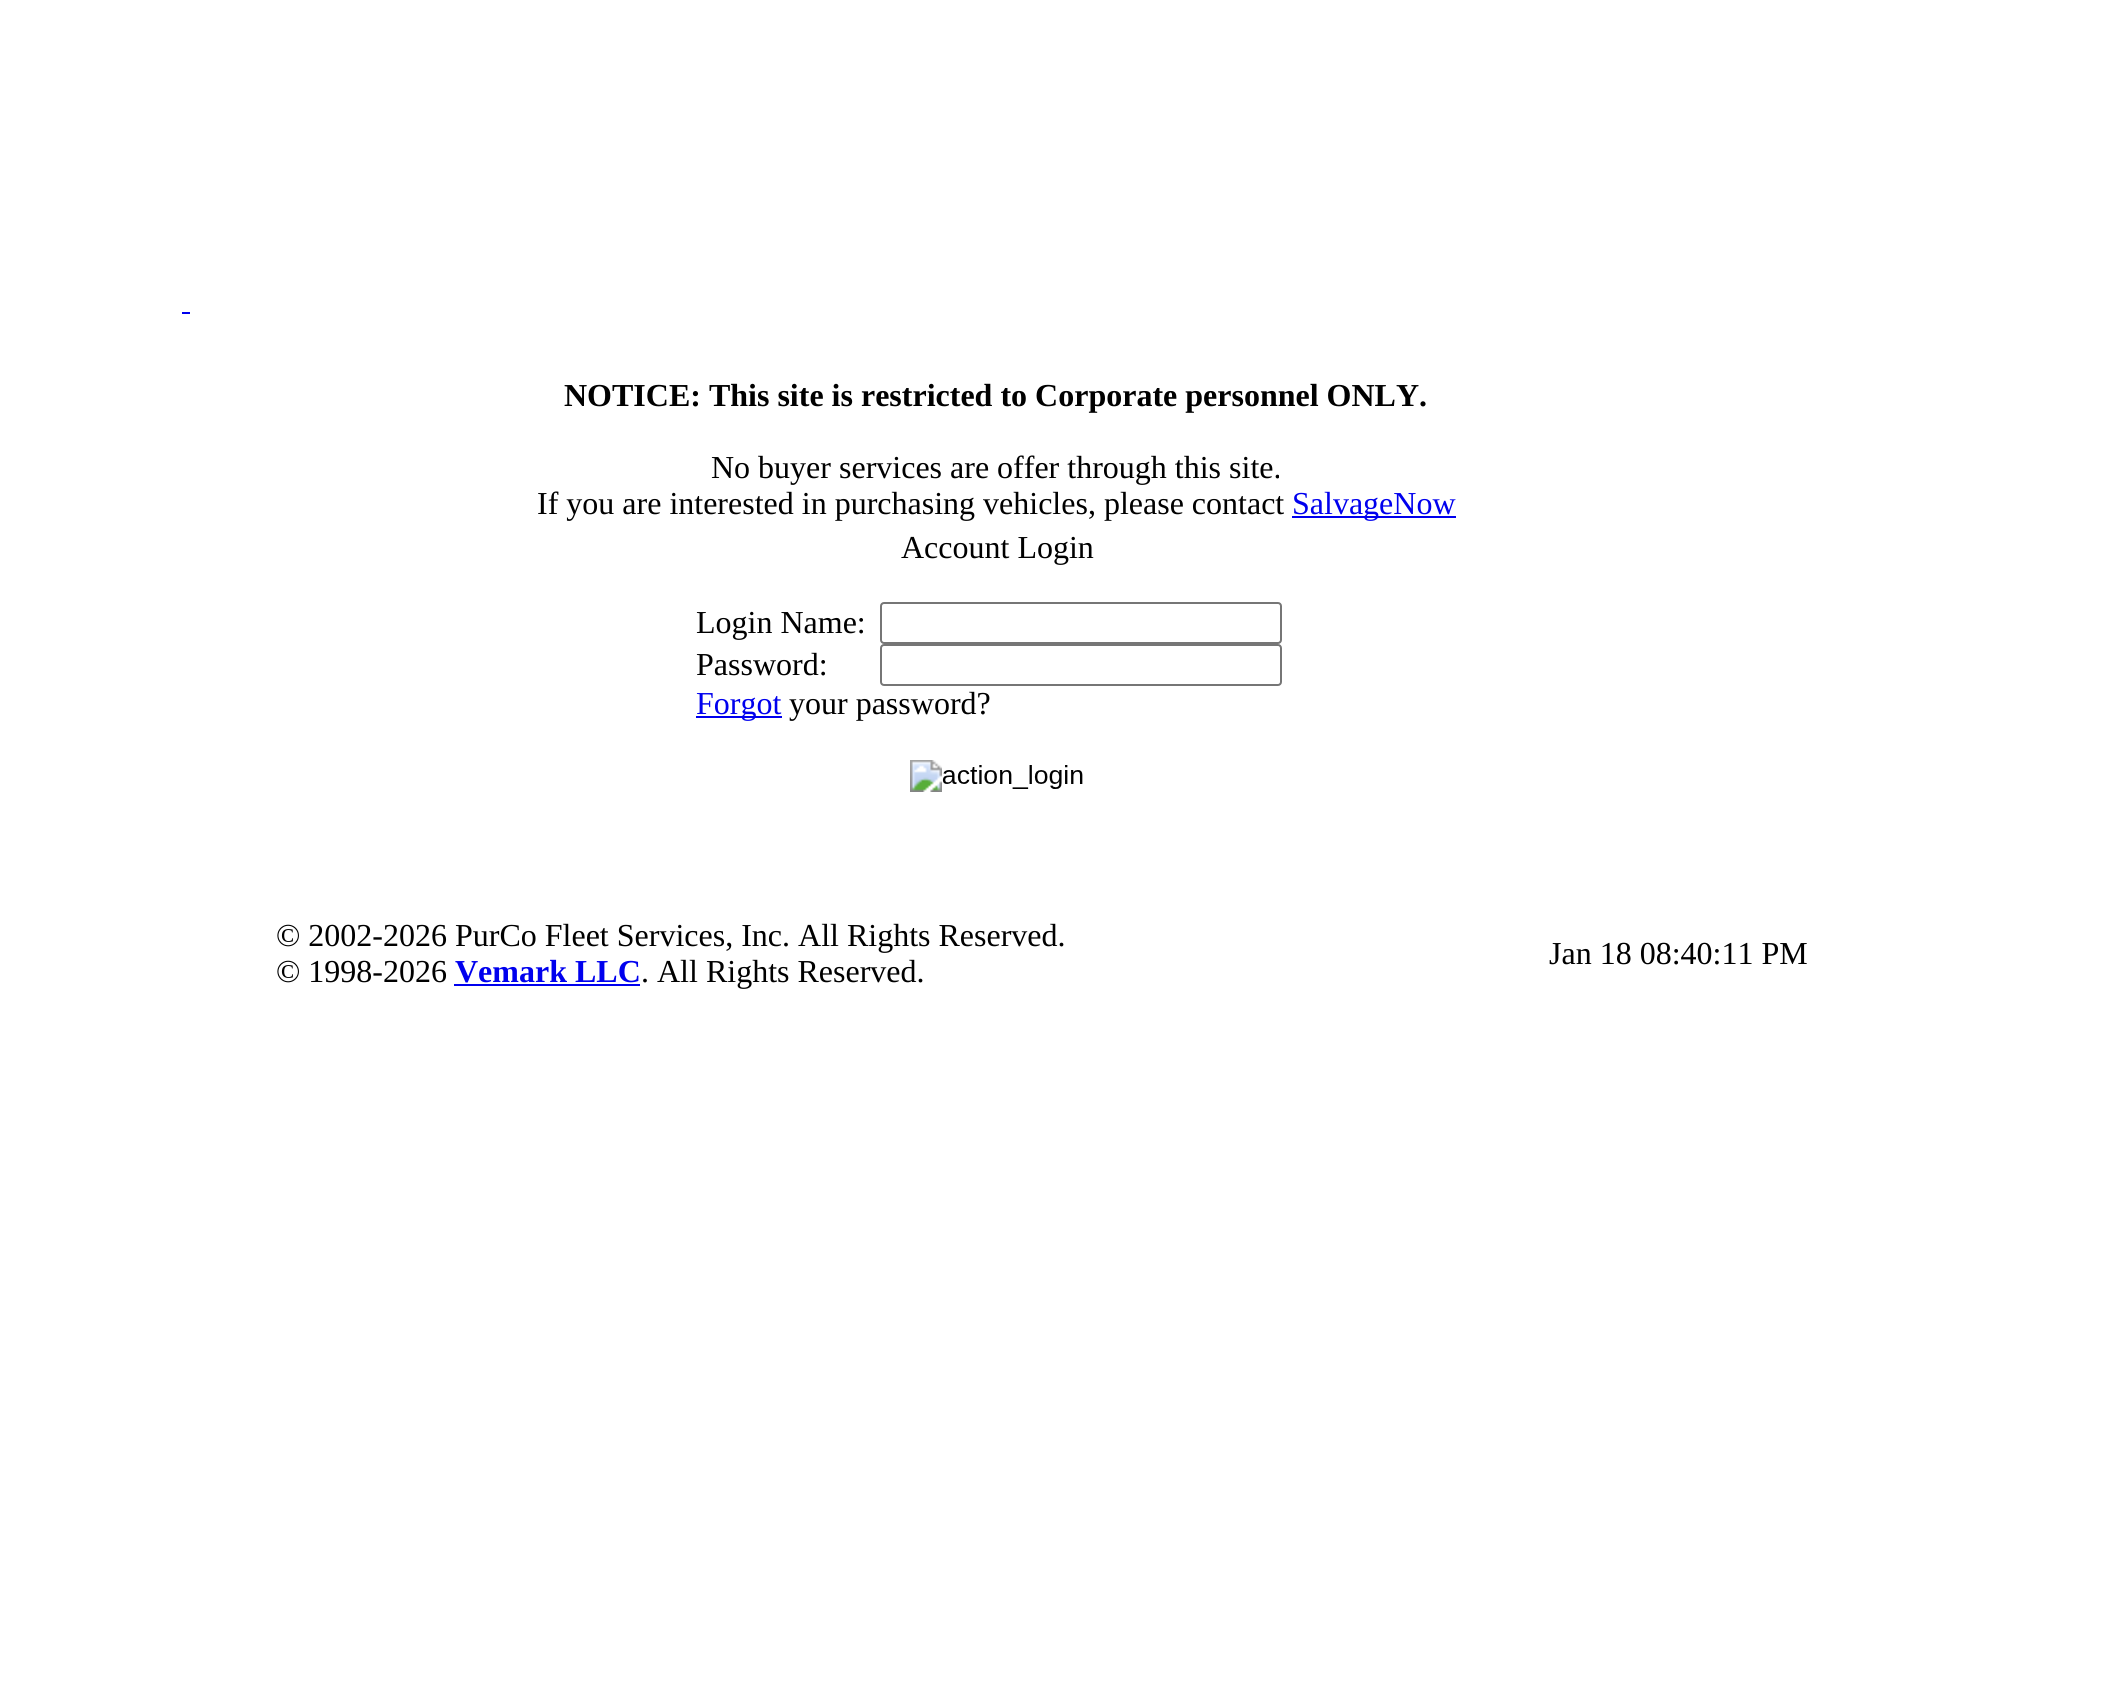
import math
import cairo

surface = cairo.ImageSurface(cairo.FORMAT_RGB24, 2107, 1689)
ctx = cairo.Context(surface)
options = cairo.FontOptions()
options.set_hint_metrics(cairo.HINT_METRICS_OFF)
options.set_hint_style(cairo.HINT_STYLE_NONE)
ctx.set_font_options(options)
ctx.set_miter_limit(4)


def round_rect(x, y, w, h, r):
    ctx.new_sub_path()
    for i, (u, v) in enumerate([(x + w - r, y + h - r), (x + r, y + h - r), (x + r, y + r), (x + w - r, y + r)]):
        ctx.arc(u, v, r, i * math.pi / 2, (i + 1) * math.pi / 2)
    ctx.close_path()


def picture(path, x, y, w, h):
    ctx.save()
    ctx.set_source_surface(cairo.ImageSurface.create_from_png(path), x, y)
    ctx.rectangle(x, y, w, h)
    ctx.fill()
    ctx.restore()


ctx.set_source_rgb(1, 1, 1)
ctx.paint()
ctx.set_source_rgb(0, 0, 0.933)
ctx.rectangle(182, 312, 8, 2)
ctx.fill()
ctx.select_font_face("Liberation Serif", cairo.FONT_SLANT_NORMAL, cairo.FONT_WEIGHT_BOLD)
ctx.set_font_size(32)
ctx.set_source_rgb(0, 0, 0)
ctx.move_to(564, 406)
ctx.show_text("NOTICE: This site is restricted to Corporate personnel ONLY.")
ctx.select_font_face("Liberation Serif")
ctx.move_to(711, 478)
ctx.show_text("No buyer services are offer through this site.")
ctx.move_to(537, 514)
ctx.show_text("If you are interested in purchasing vehicles, please contact")
ctx.set_source_rgb(0, 0, 0.933)
ctx.rectangle(1292, 516, 164, 2)
ctx.fill()
ctx.move_to(1292, 514)
ctx.show_text("SalvageNow")
ctx.set_source_rgb(0, 0, 0)
ctx.move_to(901, 558)
ctx.show_text("Account Login")
ctx.move_to(696, 633)
ctx.show_text("Login Name:")
round_rect(881, 603, 400, 40, 3)
ctx.set_source_rgb(0.463, 0.463, 0.463)
ctx.stroke()
ctx.set_source_rgb(0, 0, 0)
ctx.move_to(696, 675)
ctx.show_text("Password:")
round_rect(881, 645, 400, 40, 3)
ctx.set_source_rgb(0.463, 0.463, 0.463)
ctx.stroke()
ctx.set_source_rgb(0, 0, 0.933)
ctx.rectangle(696, 716, 86, 2)
ctx.fill()
ctx.move_to(696, 714)
ctx.show_text("Forgot")
ctx.set_source_rgb(0, 0, 0)
ctx.move_to(789, 714)
ctx.show_text("your password?")
picture("img1.png", 910, 760, 173, 32)
ctx.move_to(276, 946)
ctx.show_text("© 2002-2026 PurCo Fleet Services, Inc. All Rights Reserved.")
ctx.move_to(276, 982)
ctx.show_text("© 1998-2026")
ctx.select_font_face("Liberation Serif", cairo.FONT_SLANT_NORMAL, cairo.FONT_WEIGHT_BOLD)
ctx.set_source_rgb(0, 0, 0.933)
ctx.move_to(455, 982)
ctx.show_text("Vemark LLC")
ctx.rectangle(454, 984, 186, 2)
ctx.fill()
ctx.select_font_face("Liberation Serif")
ctx.set_source_rgb(0, 0, 0)
ctx.move_to(641, 982)
ctx.show_text(". All Rights Reserved.")
ctx.move_to(1549, 964)
ctx.show_text("Jan 18 08:40:11 PM")
surface.write_to_png("page.png")
